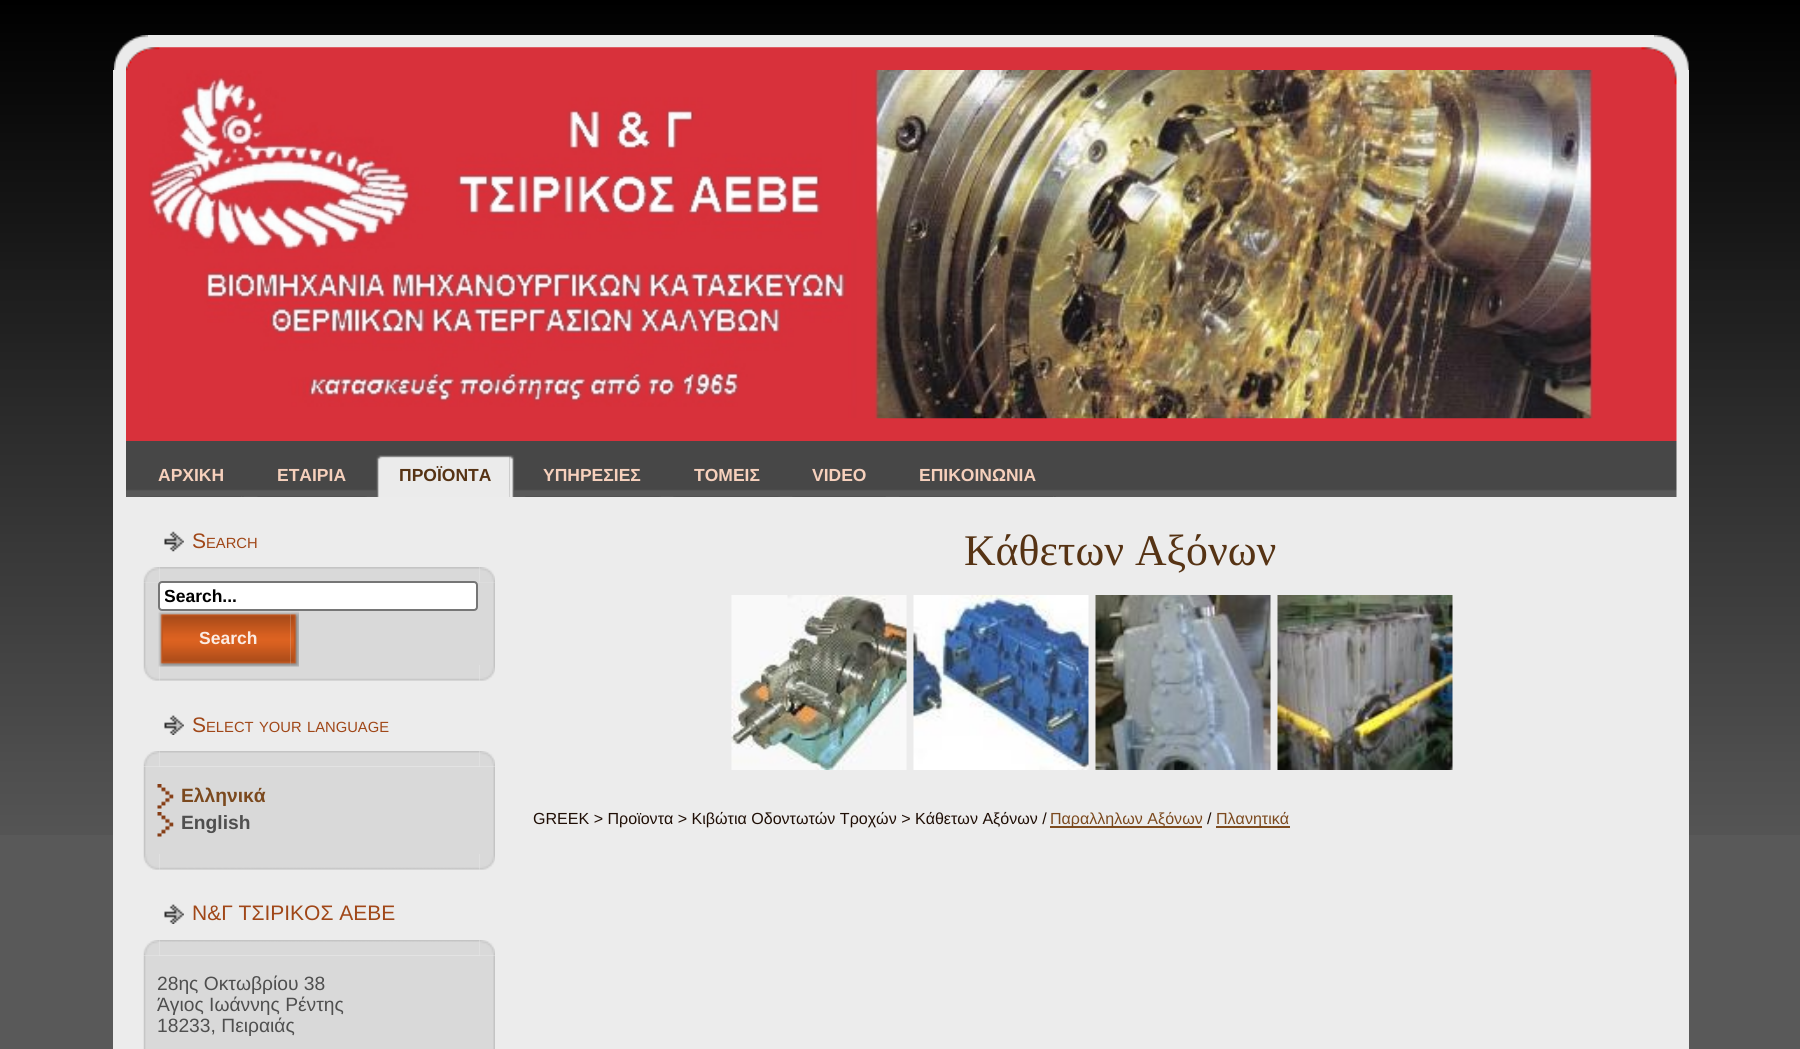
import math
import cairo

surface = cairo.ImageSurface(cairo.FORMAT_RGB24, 1800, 1049)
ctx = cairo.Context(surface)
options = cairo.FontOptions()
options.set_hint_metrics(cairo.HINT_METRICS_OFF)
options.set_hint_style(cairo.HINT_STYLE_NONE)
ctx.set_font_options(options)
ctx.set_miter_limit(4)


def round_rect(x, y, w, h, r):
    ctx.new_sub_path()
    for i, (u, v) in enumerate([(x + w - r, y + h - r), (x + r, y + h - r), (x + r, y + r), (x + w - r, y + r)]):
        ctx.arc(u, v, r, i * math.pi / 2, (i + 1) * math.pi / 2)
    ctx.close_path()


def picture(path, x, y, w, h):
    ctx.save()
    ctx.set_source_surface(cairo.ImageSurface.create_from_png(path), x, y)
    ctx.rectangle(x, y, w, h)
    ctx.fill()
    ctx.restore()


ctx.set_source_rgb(0.349, 0.349, 0.349)
ctx.paint()
picture("img1.png", 0, 0, 1800, 835)
picture("img2.png", 113, 35, 35, 35)
ctx.set_source_rgb(0.922, 0.922, 0.922)
ctx.rectangle(148, 35, 1506, 17)
ctx.fill()
picture("img3.png", 1654, 35, 35, 35)
ctx.rectangle(113, 70, 36, 979)
ctx.fill()
ctx.rectangle(1654, 70, 35, 979)
ctx.fill()
picture("img4.png", 126, 47, 1551, 394)
picture("img5.png", 148, 70, 1445, 349)
picture("img6.png", 126, 441, 1551, 56)
ctx.select_font_face("Liberation Sans", cairo.FONT_SLANT_NORMAL, cairo.FONT_WEIGHT_BOLD)
ctx.set_font_size(17.5)
ctx.set_source_rgb(0.961, 0.816, 0.737)
ctx.move_to(158, 481)
ctx.show_text("ΑΡΧΙΚΗ")
picture("img7.png", 140, 496, 101, 1)
picture("img8.png", 242, 496, 2, 1)
ctx.move_to(277, 481)
ctx.show_text("ΕΤΑΙΡΙΑ")
picture("img9.png", 257, 496, 107, 1)
picture("img10.png", 364, 496, 3, 1)
picture("img11.png", 376, 455, 134, 42)
picture("img12.png", 509, 455, 6, 42)
ctx.set_source_rgb(0.337, 0.2, 0.082)
ctx.move_to(399, 481)
ctx.show_text("ΠΡΟΪΟΝΤΑ")
ctx.set_source_rgb(0.961, 0.816, 0.737)
ctx.move_to(543, 481)
ctx.show_text("ΥΠΗΡΕΣΙΕΣ")
picture("img13.png", 525, 496, 133, 1)
picture("img10.png", 658, 496, 3, 1)
ctx.move_to(694, 481)
ctx.show_text("ΤΟΜΕΙΣ")
picture("img14.png", 673, 496, 104, 1)
picture("img10.png", 777, 496, 3, 1)
ctx.move_to(812, 481)
ctx.show_text("VIDEO")
picture("img15.png", 792, 496, 92, 1)
picture("img16.png", 884, 496, 2, 1)
ctx.move_to(919, 481)
ctx.show_text("ΕΠΙΚΟΙΝΩΝΙΑ")
picture("img17.png", 899, 496, 154, 1)
picture("img8.png", 1054, 496, 2, 1)
ctx.set_source_rgb(0.922, 0.922, 0.922)
ctx.rectangle(149, 497, 1505, 552)
ctx.fill()
picture("img18.png", 164, 531, 20, 21)
ctx.select_font_face("Liberation Sans")
ctx.set_font_size(21)
ctx.set_source_rgb(0.627, 0.278, 0.094)
ctx.move_to(192, 548)
ctx.show_text("S")
ctx.set_font_size(14.75)
ctx.move_to(206, 548)
ctx.show_text("EARCH")
picture("img19.png", 143, 567, 17, 16)
picture("img21.png", 479, 567, 16, 16)
picture("img20.png", 159, 567, 321, 16)
picture("img22.png", 143, 583, 16, 82)
ctx.set_source_rgb(0.851, 0.851, 0.851)
ctx.rectangle(159, 583, 321, 82)
ctx.fill()
picture("img23.png", 480, 583, 15, 82)
ctx.set_source_rgb(1, 1, 1)
round_rect(159, 582, 318, 28, 3)
ctx.fill_preserve()
ctx.set_source_rgb(0.463, 0.463, 0.463)
ctx.stroke()
ctx.save()
ctx.rectangle(165, 586, 306, 20)
ctx.clip()
ctx.select_font_face("Liberation Sans", cairo.FONT_SLANT_NORMAL, cairo.FONT_WEIGHT_BOLD)
ctx.set_font_size(17.5)
ctx.set_source_rgb(0, 0, 0)
ctx.move_to(164, 602)
ctx.show_text("Search...")
ctx.restore()
picture("img26.png", 143, 665, 17, 16)
picture("img28.png", 479, 665, 16, 16)
picture("img27.png", 159, 665, 321, 16)
picture("img24.png", 158, 611, 133, 56)
picture("img25.png", 290, 611, 9, 56)
ctx.select_font_face("Liberation Sans", cairo.FONT_SLANT_NORMAL, cairo.FONT_WEIGHT_BOLD)
ctx.set_font_size(17.5)
ctx.set_source_rgb(0.984, 0.925, 0.894)
ctx.move_to(199, 644)
ctx.show_text("Search")
picture("img29.png", 164, 715, 20, 20)
ctx.select_font_face("Liberation Sans")
ctx.set_font_size(21)
ctx.set_source_rgb(0.627, 0.278, 0.094)
ctx.move_to(192, 732)
ctx.show_text("S")
ctx.set_font_size(14.75)
ctx.move_to(206, 732)
ctx.show_text("ELECT")
ctx.move_to(259, 732)
ctx.show_text("YOUR")
ctx.move_to(307, 732)
ctx.show_text("LANGUAGE")
picture("img30.png", 143, 751, 17, 16)
picture("img32.png", 479, 751, 16, 16)
picture("img31.png", 159, 751, 321, 16)
picture("img33.png", 143, 766, 17, 88)
picture("img34.png", 479, 766, 16, 88)
ctx.set_source_rgb(0.851, 0.851, 0.851)
ctx.rectangle(159, 767, 321, 87)
ctx.fill()
picture("img35.png", 157, 784, 17, 25)
ctx.select_font_face("Liberation Sans", cairo.FONT_SLANT_NORMAL, cairo.FONT_WEIGHT_BOLD)
ctx.set_font_size(19.25)
ctx.set_source_rgb(0.482, 0.286, 0.118)
ctx.move_to(181, 802)
ctx.show_text("Ελληνικά")
picture("img35.png", 157, 812, 17, 25)
ctx.set_source_rgb(0.31, 0.31, 0.31)
ctx.move_to(181, 829)
ctx.show_text("English")
picture("img26.png", 143, 854, 17, 16)
picture("img28.png", 479, 854, 16, 16)
picture("img36.png", 159, 854, 321, 16)
picture("img29.png", 164, 904, 20, 20)
ctx.select_font_face("Liberation Sans")
ctx.set_font_size(21)
ctx.set_source_rgb(0.627, 0.278, 0.094)
ctx.move_to(192, 920)
ctx.show_text("Ν&Γ ΤΣΙΡΙΚΟΣ ΑΕΒΕ")
picture("img30.png", 143, 940, 17, 16)
picture("img32.png", 479, 940, 16, 16)
picture("img37.png", 159, 940, 321, 16)
picture("img38.png", 143, 955, 17, 94)
picture("img39.png", 479, 955, 16, 94)
ctx.set_source_rgb(0.851, 0.851, 0.851)
ctx.rectangle(159, 956, 321, 93)
ctx.fill()
ctx.set_font_size(19.25)
ctx.set_source_rgb(0.31, 0.31, 0.31)
ctx.move_to(157, 990)
ctx.show_text("28ης Οκτωβρίου 38")
ctx.move_to(157, 1011)
ctx.show_text("Άγιος Ιωάννης Ρέντης")
ctx.move_to(157, 1032)
ctx.show_text("18233, Πειραιάς")
ctx.select_font_face("Liberation Serif")
ctx.set_font_size(43.75)
ctx.set_source_rgb(0.337, 0.2, 0.082)
ctx.move_to(964, 565)
ctx.show_text("Κάθετων Αξόνων")
picture("img40.png", 731, 595, 176, 175)
picture("img41.png", 913, 595, 176, 175)
picture("img42.png", 1095, 595, 176, 175)
picture("img43.png", 1277, 595, 176, 175)
ctx.select_font_face("Liberation Sans")
ctx.set_font_size(16.05)
ctx.set_source_rgb(0.122, 0.055, 0.02)
ctx.move_to(533, 824)
ctx.show_text("GREEK > Προϊοντα > Κιβώτια Οδοντωτών Τροχών > Κάθετων Αξόνων /")
ctx.set_source_rgb(0.498, 0.298, 0.122)
ctx.rectangle(1050, 826, 152, 2)
ctx.fill()
ctx.set_source_rgb(0.482, 0.286, 0.118)
ctx.move_to(1050, 824)
ctx.show_text("Παραλληλων Αξόνων")
ctx.set_source_rgb(0.122, 0.055, 0.02)
ctx.move_to(1207, 824)
ctx.show_text("/")
ctx.set_source_rgb(0.498, 0.298, 0.122)
ctx.rectangle(1216, 826, 74, 2)
ctx.fill()
ctx.set_source_rgb(0.482, 0.286, 0.118)
ctx.move_to(1216, 824)
ctx.show_text("Πλανητικά")
surface.write_to_png("page.png")
